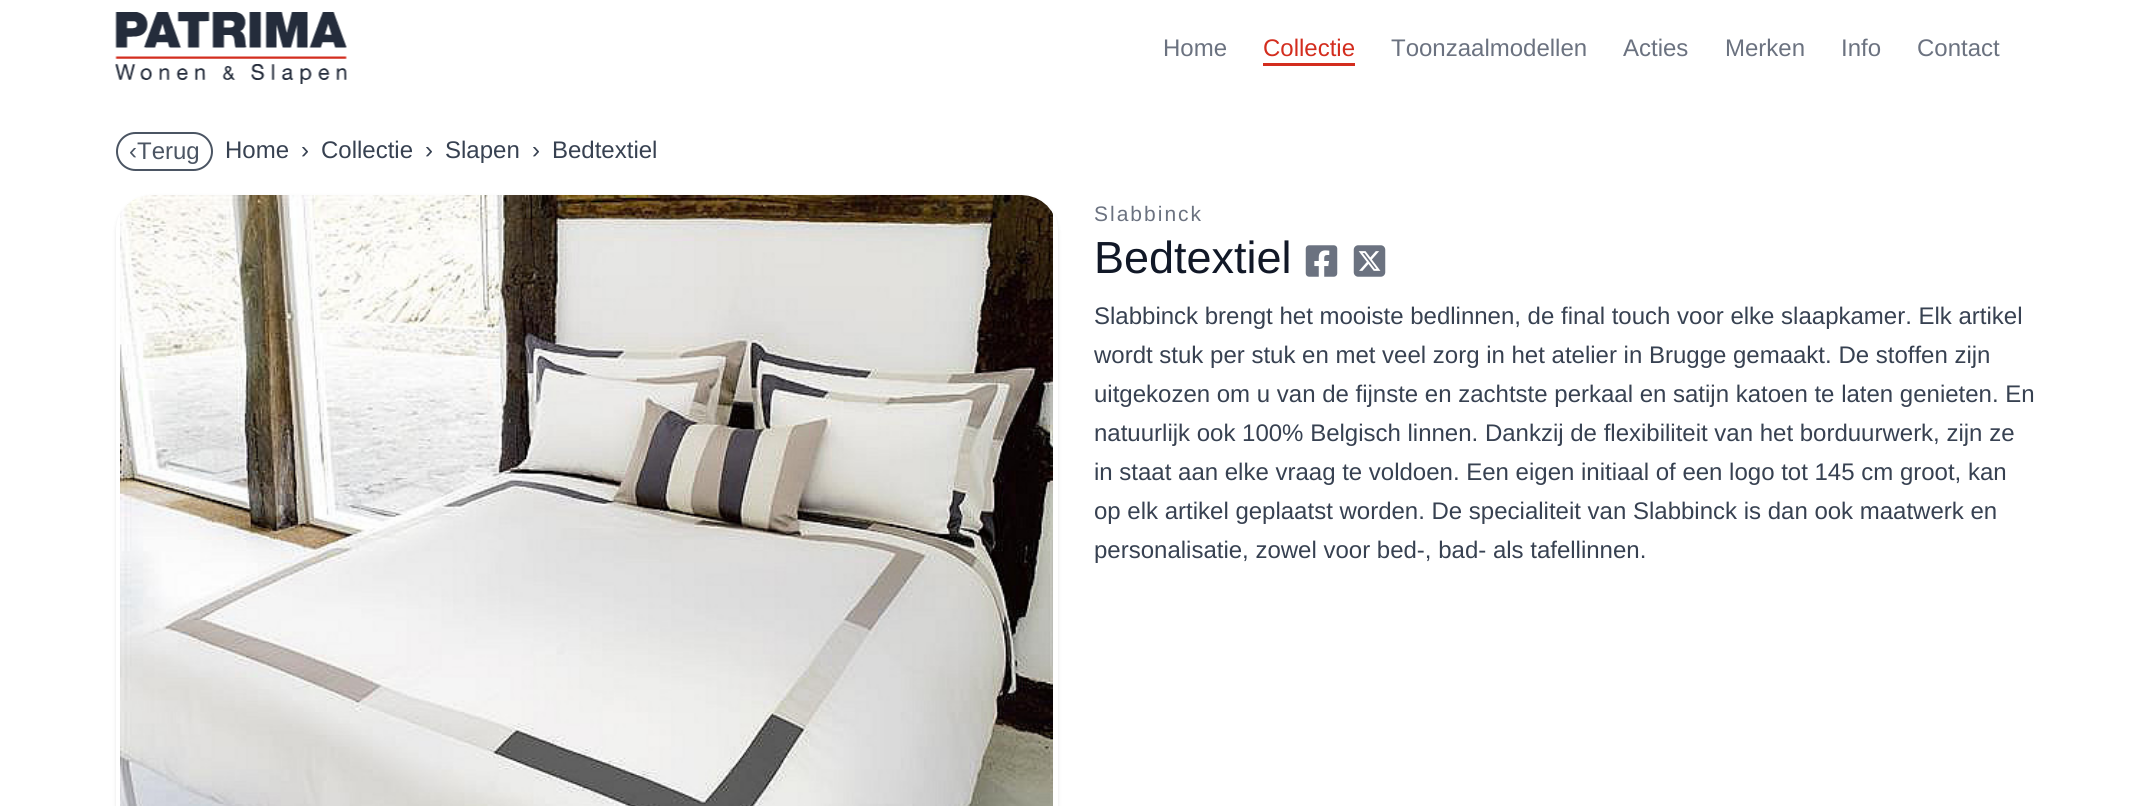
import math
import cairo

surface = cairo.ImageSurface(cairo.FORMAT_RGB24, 2151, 806)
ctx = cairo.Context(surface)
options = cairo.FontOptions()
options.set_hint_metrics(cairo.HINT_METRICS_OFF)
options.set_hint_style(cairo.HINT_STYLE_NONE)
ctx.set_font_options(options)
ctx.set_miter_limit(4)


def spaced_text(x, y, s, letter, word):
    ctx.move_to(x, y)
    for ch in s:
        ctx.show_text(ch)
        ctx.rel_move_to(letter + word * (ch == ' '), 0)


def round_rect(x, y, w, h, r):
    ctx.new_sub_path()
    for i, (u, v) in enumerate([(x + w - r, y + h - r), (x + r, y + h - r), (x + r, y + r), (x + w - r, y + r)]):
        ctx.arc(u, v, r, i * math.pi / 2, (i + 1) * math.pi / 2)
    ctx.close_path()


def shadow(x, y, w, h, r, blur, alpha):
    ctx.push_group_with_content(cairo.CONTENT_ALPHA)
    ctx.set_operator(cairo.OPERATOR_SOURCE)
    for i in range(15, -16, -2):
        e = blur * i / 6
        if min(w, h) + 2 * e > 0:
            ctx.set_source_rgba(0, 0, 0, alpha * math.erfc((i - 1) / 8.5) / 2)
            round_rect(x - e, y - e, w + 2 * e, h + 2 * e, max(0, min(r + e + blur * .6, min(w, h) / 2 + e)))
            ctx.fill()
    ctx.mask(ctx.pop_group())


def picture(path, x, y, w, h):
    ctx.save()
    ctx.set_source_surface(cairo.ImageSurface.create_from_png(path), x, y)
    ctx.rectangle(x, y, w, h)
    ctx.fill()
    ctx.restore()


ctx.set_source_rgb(1, 1, 1)
ctx.paint()
picture("img1.png", 115, 12, 232, 72)
ctx.select_font_face("Liberation Sans")
ctx.set_font_size(24)
ctx.set_source_rgb(0.42, 0.447, 0.502)
ctx.move_to(1163, 56)
ctx.show_text("Home")
ctx.set_source_rgb(0.827, 0.176, 0.118)
ctx.move_to(1263, 56)
ctx.show_text("Collectie")
ctx.rectangle(1263, 63, 92, 3)
ctx.fill()
ctx.set_source_rgb(0.42, 0.447, 0.502)
ctx.move_to(1391, 56)
ctx.show_text("Toonzaalmodellen")
ctx.move_to(1623, 56)
ctx.show_text("Acties")
ctx.move_to(1725, 56)
ctx.show_text("Merken")
ctx.move_to(1841, 56)
ctx.show_text("Info")
ctx.move_to(1917, 56)
ctx.show_text("Contact")
round_rect(117, 133, 95, 37, 18.5)
ctx.set_source_rgb(0.294, 0.333, 0.388)
ctx.stroke()
ctx.move_to(129, 159)
ctx.show_text("‹Terug")
ctx.set_source_rgb(0.216, 0.255, 0.318)
ctx.move_to(225, 158)
ctx.show_text("Home")
ctx.move_to(301, 158)
ctx.show_text("›")
ctx.move_to(321, 158)
ctx.show_text("Collectie")
ctx.move_to(425, 158)
ctx.show_text("›")
ctx.move_to(445, 158)
ctx.show_text("Slapen")
ctx.move_to(532, 158)
ctx.show_text("›")
ctx.move_to(552, 158)
ctx.show_text("Bedtextiel")
ctx.save()
ctx.set_fill_rule(cairo.FILL_RULE_EVEN_ODD)
ctx.new_path()
ctx.move_to(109, 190)
ctx.line_to(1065, 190)
ctx.line_to(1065, 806)
ctx.line_to(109, 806)
ctx.close_path()
ctx.move_to(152, 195)
ctx.line_to(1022, 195)
ctx.curve_to(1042, 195, 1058, 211, 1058, 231)
ctx.line_to(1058, 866)
ctx.curve_to(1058, 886, 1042, 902, 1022, 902)
ctx.line_to(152, 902)
ctx.curve_to(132, 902, 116, 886, 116, 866)
ctx.line_to(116, 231)
ctx.curve_to(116, 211, 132, 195, 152, 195)
ctx.close_path()
ctx.clip()
ctx.set_source_rgb(0, 0, 0)
shadow(116, 197, 942, 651, 36, 2, 0.1)
ctx.restore()
picture("img2.png", 120, 195, 933, 611)
ctx.set_font_size(21)
ctx.set_source_rgb(0.42, 0.447, 0.502)
spaced_text(1094, 221, "Slabbinck", 2, 0)
ctx.set_font_size(45)
ctx.set_source_rgb(0.067, 0.094, 0.153)
ctx.move_to(1094, 273)
ctx.show_text("Bedtextiel")
picture("img3.png", 1305, 245, 33, 32)
picture("img4.png", 1353, 245, 33, 32)
ctx.set_font_size(24)
ctx.set_source_rgb(0.216, 0.255, 0.318)
ctx.move_to(1094, 324)
ctx.show_text("Slabbinck brengt het mooiste bedlinnen, de final touch voor elke slaapkamer. Elk artikel")
ctx.move_to(1094, 363)
ctx.show_text("wordt stuk per stuk en met veel zorg in het atelier in Brugge gemaakt. De stoffen zijn")
ctx.move_to(1094, 402)
ctx.show_text("uitgekozen om u van de fijnste en zachtste perkaal en satijn katoen te laten genieten. En")
ctx.move_to(1094, 441)
ctx.show_text("natuurlijk ook 100% Belgisch linnen. Dankzij de flexibiliteit van het borduurwerk, zijn ze")
ctx.move_to(1094, 480)
ctx.show_text("in staat aan elke vraag te voldoen. Een eigen initiaal of een logo tot 145 cm groot, kan")
ctx.move_to(1094, 519)
ctx.show_text("op elk artikel geplaatst worden. De specialiteit van Slabbinck is dan ook maatwerk en")
ctx.move_to(1094, 558)
ctx.show_text("personalisatie, zowel voor bed-, bad- als tafellinnen.")
surface.write_to_png("page.png")
